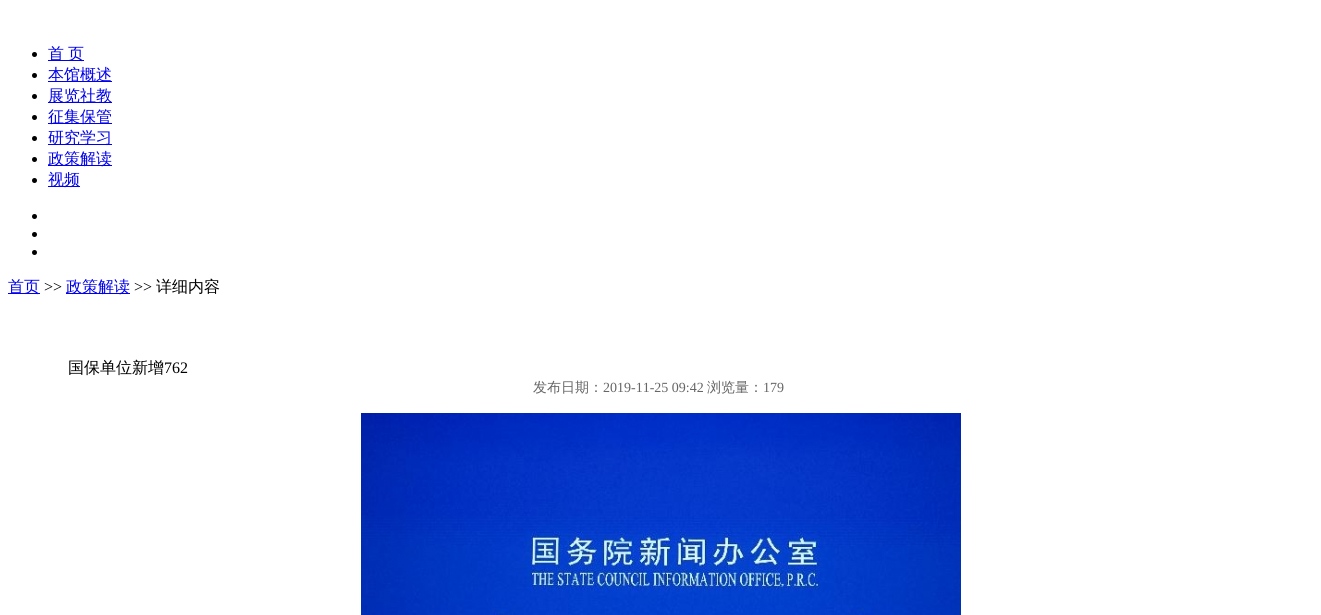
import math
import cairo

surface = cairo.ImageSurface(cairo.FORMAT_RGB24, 1321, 615)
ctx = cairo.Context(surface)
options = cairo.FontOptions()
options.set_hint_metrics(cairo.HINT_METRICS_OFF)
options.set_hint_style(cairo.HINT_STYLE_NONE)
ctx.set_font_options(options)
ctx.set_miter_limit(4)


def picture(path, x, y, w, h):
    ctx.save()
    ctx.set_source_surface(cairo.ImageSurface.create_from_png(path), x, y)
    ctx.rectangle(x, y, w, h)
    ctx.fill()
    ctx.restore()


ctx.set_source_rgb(1, 1, 1)
ctx.paint()
ctx.set_source_rgb(0, 0, 0)
ctx.arc(34.5, 54.5, 2.5, 0, 2 * math.pi)
ctx.fill()
ctx.set_source_rgb(0, 0, 0.933)
ctx.rectangle(48, 60, 36, 1)
ctx.fill()
ctx.select_font_face("WenQuanYi Zen Hei Medium")
ctx.set_font_size(16)
ctx.move_to(48, 59)
ctx.show_text("首")
ctx.move_to(68, 59)
ctx.show_text("页")
ctx.set_source_rgb(0, 0, 0)
ctx.new_path()
ctx.arc(34.5, 75.5, 2.5, 0, 2 * math.pi)
ctx.fill()
ctx.set_source_rgb(0, 0, 0.933)
ctx.rectangle(48, 81, 64, 1)
ctx.fill()
ctx.move_to(48, 80)
ctx.show_text("本馆概述")
ctx.set_source_rgb(0, 0, 0)
ctx.new_path()
ctx.arc(34.5, 96.5, 2.5, 0, 2 * math.pi)
ctx.fill()
ctx.set_source_rgb(0, 0, 0.933)
ctx.rectangle(48, 102, 64, 1)
ctx.fill()
ctx.move_to(48, 101)
ctx.show_text("展览社教")
ctx.set_source_rgb(0, 0, 0)
ctx.new_path()
ctx.arc(34.5, 117.5, 2.5, 0, 2 * math.pi)
ctx.fill()
ctx.set_source_rgb(0, 0, 0.933)
ctx.rectangle(48, 123, 64, 1)
ctx.fill()
ctx.move_to(48, 122)
ctx.show_text("征集保管")
ctx.set_source_rgb(0, 0, 0)
ctx.new_path()
ctx.arc(34.5, 138.5, 2.5, 0, 2 * math.pi)
ctx.fill()
ctx.set_source_rgb(0, 0, 0.933)
ctx.rectangle(48, 144, 64, 1)
ctx.fill()
ctx.move_to(48, 143)
ctx.show_text("研究学习")
ctx.set_source_rgb(0, 0, 0)
ctx.new_path()
ctx.arc(34.5, 159.5, 2.5, 0, 2 * math.pi)
ctx.fill()
ctx.set_source_rgb(0, 0, 0.933)
ctx.rectangle(48, 165, 64, 1)
ctx.fill()
ctx.move_to(48, 164)
ctx.show_text("政策解读")
ctx.set_source_rgb(0, 0, 0)
ctx.new_path()
ctx.arc(34.5, 180.5, 2.5, 0, 2 * math.pi)
ctx.fill()
ctx.set_source_rgb(0, 0, 0.933)
ctx.rectangle(48, 186, 32, 1)
ctx.fill()
ctx.move_to(48, 185)
ctx.show_text("视频")
ctx.set_source_rgb(0, 0, 0)
ctx.new_path()
ctx.arc(34.5, 216.5, 2.5, 0, 2 * math.pi)
ctx.fill()
ctx.arc(34.5, 234.5, 2.5, 0, 2 * math.pi)
ctx.fill()
ctx.arc(34.5, 252.5, 2.5, 0, 2 * math.pi)
ctx.fill()
ctx.set_source_rgb(0, 0, 0.933)
ctx.rectangle(8, 293, 32, 1)
ctx.fill()
ctx.move_to(8, 292)
ctx.show_text("首页")
ctx.select_font_face("Liberation Serif")
ctx.set_source_rgb(0, 0, 0)
ctx.move_to(44, 292)
ctx.show_text(">>")
ctx.set_source_rgb(0, 0, 0.933)
ctx.rectangle(66, 293, 64, 1)
ctx.fill()
ctx.select_font_face("WenQuanYi Zen Hei Medium")
ctx.move_to(66, 292)
ctx.show_text("政策解读")
ctx.select_font_face("Liberation Serif")
ctx.set_source_rgb(0, 0, 0)
ctx.move_to(134, 292)
ctx.show_text(">>")
ctx.select_font_face("WenQuanYi Zen Hei Medium")
ctx.move_to(156, 292)
ctx.show_text("详细内容")
ctx.move_to(68, 373)
ctx.show_text("国保单位新增")
ctx.select_font_face("Liberation Serif")
ctx.move_to(164, 373)
ctx.show_text("762")
ctx.select_font_face("WenQuanYi Zen Hei Medium")
ctx.set_font_size(14)
ctx.set_source_rgb(0.4, 0.4, 0.4)
ctx.move_to(533, 392)
ctx.show_text("发布日期：")
ctx.select_font_face("Liberation Serif")
ctx.move_to(603, 392)
ctx.show_text("2019-11-25 09:42")
ctx.select_font_face("WenQuanYi Zen Hei Medium")
ctx.move_to(707, 392)
ctx.show_text("浏览量：")
ctx.select_font_face("Liberation Serif")
ctx.move_to(763, 392)
ctx.show_text("179")
picture("img1.png", 361, 413, 600, 202)
surface.write_to_png("page.png")
